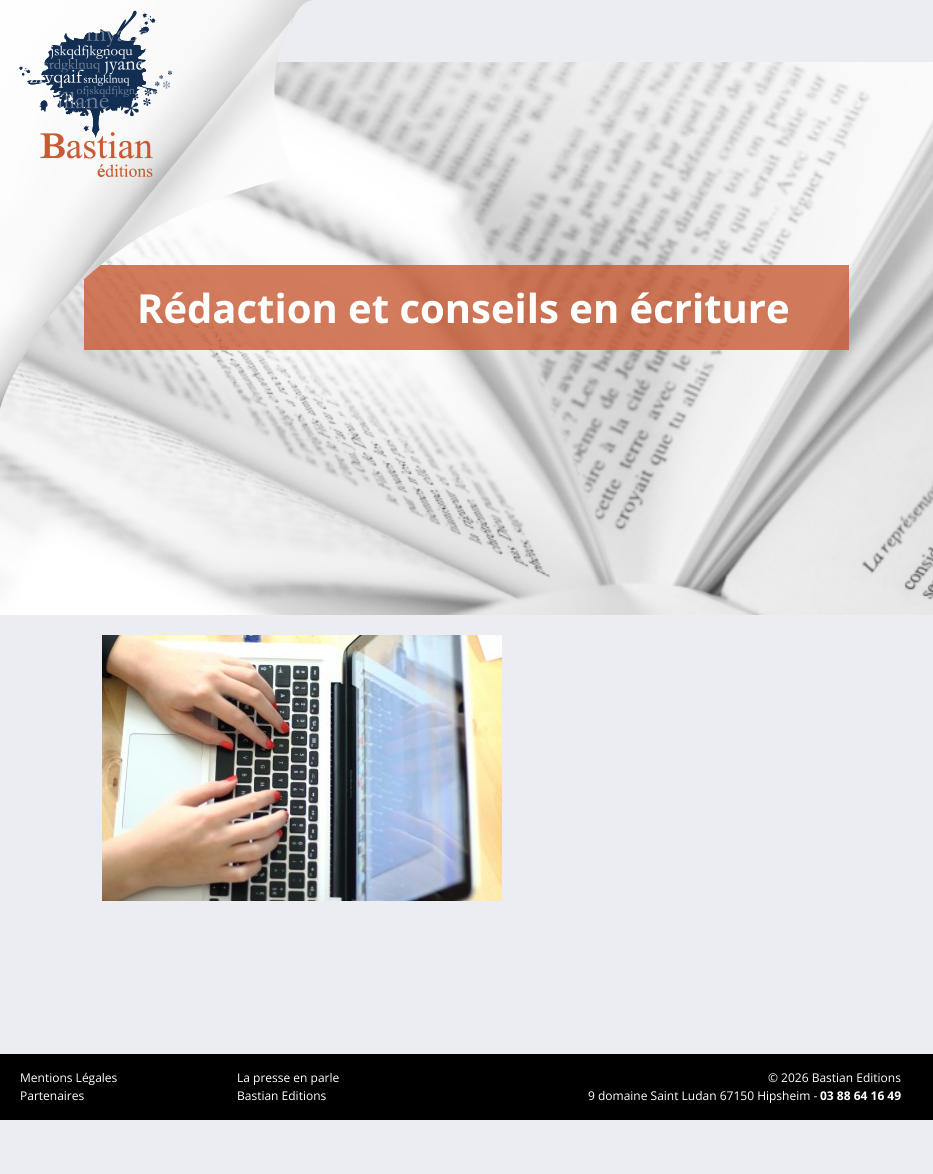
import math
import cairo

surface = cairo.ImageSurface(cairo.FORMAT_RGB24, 933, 1174)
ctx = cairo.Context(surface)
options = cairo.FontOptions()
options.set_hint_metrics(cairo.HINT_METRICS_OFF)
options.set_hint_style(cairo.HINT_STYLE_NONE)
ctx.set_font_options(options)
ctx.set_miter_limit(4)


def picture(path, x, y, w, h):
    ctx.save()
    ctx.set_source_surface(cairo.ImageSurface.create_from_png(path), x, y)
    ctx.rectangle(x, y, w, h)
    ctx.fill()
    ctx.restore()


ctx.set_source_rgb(0.918, 0.929, 0.949)
ctx.paint()
picture("img3.png", 0, 62, 933, 553)
ctx.set_source_rgba(0.784, 0.357, 0.208, 0.8)
ctx.rectangle(84, 265, 765, 85)
ctx.fill()
ctx.select_font_face("Open Sans", cairo.FONT_SLANT_NORMAL, cairo.FONT_WEIGHT_BOLD)
ctx.set_font_size(40)
ctx.set_source_rgb(1, 1, 1)
ctx.move_to(137, 323)
ctx.show_text("Rédaction et conseils en écriture")
picture("img1.png", 0, 0, 313, 409)
picture("img2.png", 18, 10, 154, 167)
picture("img4.png", 102, 635, 400, 266)
ctx.set_source_rgb(0, 0, 0)
ctx.rectangle(0, 1054, 933, 66)
ctx.fill()
ctx.select_font_face("Open Sans")
ctx.set_font_size(12)
ctx.set_source_rgb(1, 1, 1)
ctx.move_to(20, 1082)
ctx.show_text("Mentions Légales")
ctx.move_to(20, 1100)
ctx.show_text("Partenaires")
ctx.move_to(237, 1082)
ctx.show_text("La presse en parle")
ctx.move_to(237, 1100)
ctx.show_text("Bastian Editions")
ctx.move_to(768, 1082)
ctx.show_text("© 2026 Bastian Editions")
ctx.move_to(588, 1100)
ctx.show_text("9 domaine Saint Ludan 67150 Hipsheim -")
ctx.select_font_face("Open Sans", cairo.FONT_SLANT_NORMAL, cairo.FONT_WEIGHT_BOLD)
ctx.move_to(820, 1100)
ctx.show_text("03 88 64 16 49")
surface.write_to_png("page.png")
